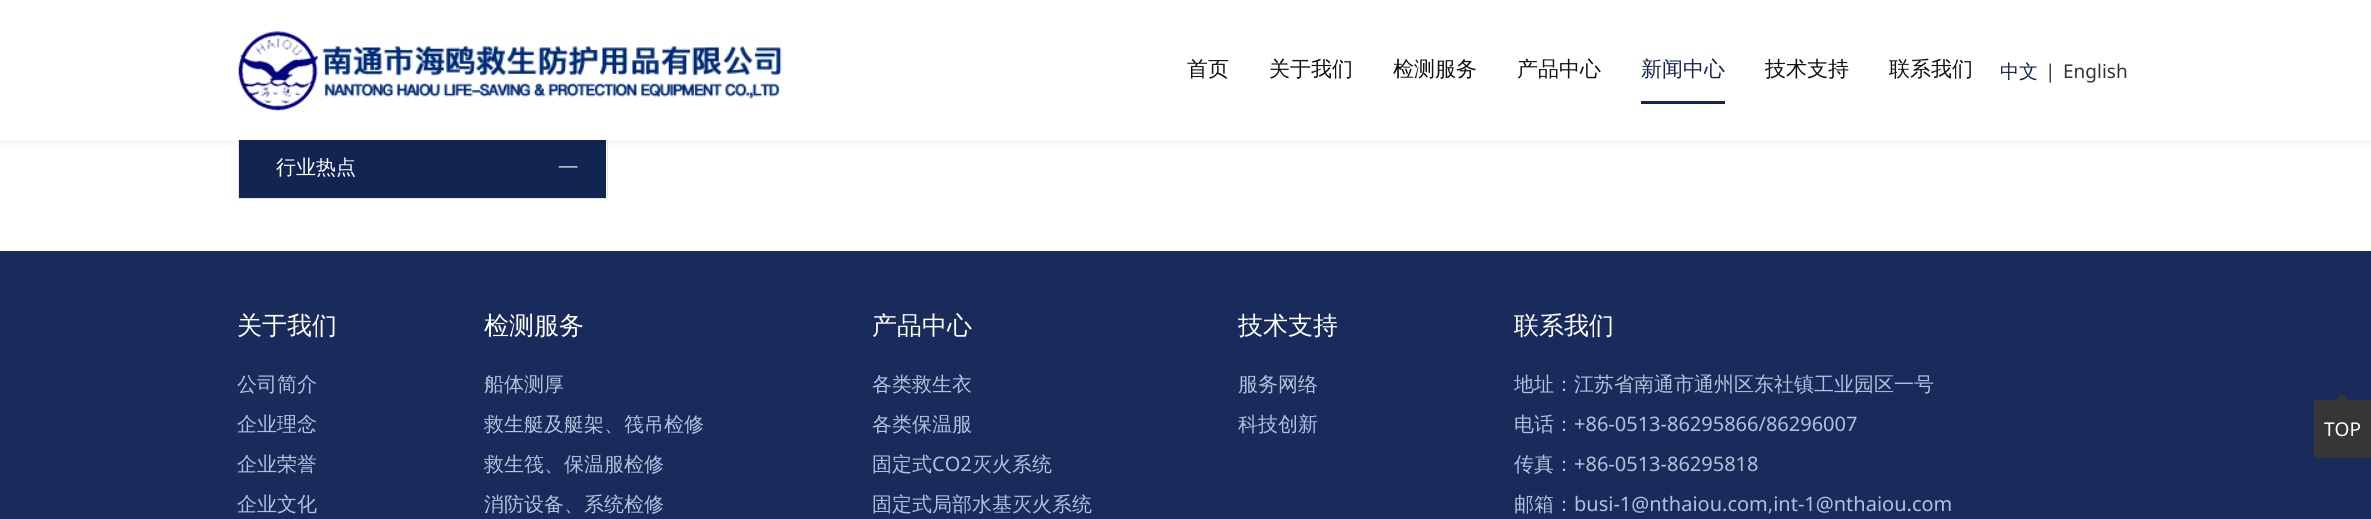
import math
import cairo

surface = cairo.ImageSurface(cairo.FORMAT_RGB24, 2371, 519)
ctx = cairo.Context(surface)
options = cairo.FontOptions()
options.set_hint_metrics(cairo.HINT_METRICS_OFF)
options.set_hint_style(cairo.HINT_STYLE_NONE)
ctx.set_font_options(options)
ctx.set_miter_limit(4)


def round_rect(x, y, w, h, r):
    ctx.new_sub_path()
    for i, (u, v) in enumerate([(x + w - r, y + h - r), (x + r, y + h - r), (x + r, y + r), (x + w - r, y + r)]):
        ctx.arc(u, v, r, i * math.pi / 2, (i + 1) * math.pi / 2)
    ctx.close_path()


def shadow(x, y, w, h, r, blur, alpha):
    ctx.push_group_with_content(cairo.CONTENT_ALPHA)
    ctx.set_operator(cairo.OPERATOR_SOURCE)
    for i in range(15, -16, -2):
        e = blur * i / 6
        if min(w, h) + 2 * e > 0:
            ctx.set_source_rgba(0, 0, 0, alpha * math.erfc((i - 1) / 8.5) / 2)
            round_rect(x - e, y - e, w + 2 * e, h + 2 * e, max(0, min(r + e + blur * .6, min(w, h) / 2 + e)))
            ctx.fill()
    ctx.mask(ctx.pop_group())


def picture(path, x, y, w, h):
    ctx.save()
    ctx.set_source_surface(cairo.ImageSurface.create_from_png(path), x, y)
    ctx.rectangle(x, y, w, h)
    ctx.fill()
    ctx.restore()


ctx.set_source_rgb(1, 1, 1)
ctx.paint()
ctx.rectangle(238.5, 136.5, 369, 62)
ctx.set_source_rgb(0.898, 0.898, 0.898)
ctx.set_line_width(1)
ctx.stroke()
ctx.set_source_rgb(0.071, 0.141, 0.318)
ctx.rectangle(239, 140, 367, 58)
ctx.fill()
ctx.set_source_rgb(0, 0, 0)
shadow(0, 3, 2371, 140, 0, 3, 0.05)
ctx.set_source_rgb(1, 1, 1)
ctx.rectangle(0, 0, 2371, 140)
ctx.fill()
picture("img1.png", 238, 31, 544, 80)
ctx.select_font_face("WenQuanYi Zen Hei Medium")
ctx.set_font_size(21)
ctx.set_source_rgb(0.067, 0.067, 0.067)
ctx.move_to(1187, 76)
ctx.show_text("首页")
ctx.move_to(1269, 76)
ctx.show_text("关于我们")
ctx.move_to(1393, 76)
ctx.show_text("检测服务")
ctx.move_to(1517, 76)
ctx.show_text("产品中心")
ctx.set_source_rgb(0.071, 0.141, 0.318)
ctx.move_to(1641, 76)
ctx.show_text("新闻中心")
ctx.rectangle(1641, 101, 84, 3)
ctx.fill()
ctx.set_source_rgb(0.067, 0.067, 0.067)
ctx.move_to(1765, 76)
ctx.show_text("技术支持")
ctx.move_to(1889, 76)
ctx.show_text("联系我们")
ctx.set_font_size(19)
ctx.set_source_rgb(0.071, 0.141, 0.318)
ctx.move_to(2000, 78)
ctx.show_text("中文")
ctx.select_font_face("Noto Sans")
ctx.set_source_rgb(0.2, 0.2, 0.2)
ctx.move_to(2045, 78)
ctx.show_text("|")
ctx.move_to(2063, 78)
ctx.show_text("English")
ctx.select_font_face("WenQuanYi Zen Hei Medium")
ctx.set_font_size(20)
ctx.set_source_rgb(1, 1, 1)
ctx.move_to(276, 174)
ctx.show_text("行业热点")
picture("img2.png", 558, 166, 20, 2)
ctx.set_source_rgb(0.094, 0.169, 0.357)
ctx.rectangle(0, 251, 2371, 268)
ctx.fill()
ctx.set_font_size(25)
ctx.set_source_rgb(1, 1, 1)
ctx.move_to(237, 334)
ctx.show_text("关于我们")
ctx.set_font_size(20)
ctx.set_source_rgb(0.678, 0.769, 0.871)
ctx.move_to(237, 391)
ctx.show_text("公司简介")
ctx.move_to(237, 431)
ctx.show_text("企业理念")
ctx.move_to(237, 471)
ctx.show_text("企业荣誉")
ctx.move_to(237, 511)
ctx.show_text("企业文化")
ctx.set_font_size(25)
ctx.set_source_rgb(1, 1, 1)
ctx.move_to(484, 334)
ctx.show_text("检测服务")
ctx.set_font_size(20)
ctx.set_source_rgb(0.678, 0.769, 0.871)
ctx.move_to(484, 391)
ctx.show_text("船体测厚")
ctx.move_to(484, 431)
ctx.show_text("救生艇及艇架、筏吊检修")
ctx.move_to(484, 471)
ctx.show_text("救生筏、保温服检修")
ctx.move_to(484, 511)
ctx.show_text("消防设备、系统检修")
ctx.set_font_size(25)
ctx.set_source_rgb(1, 1, 1)
ctx.move_to(872, 334)
ctx.show_text("产品中心")
ctx.set_font_size(20)
ctx.set_source_rgb(0.678, 0.769, 0.871)
ctx.move_to(872, 391)
ctx.show_text("各类救生衣")
ctx.move_to(872, 431)
ctx.show_text("各类保温服")
ctx.move_to(872, 471)
ctx.show_text("固定式")
ctx.select_font_face("Noto Sans")
ctx.move_to(932, 471)
ctx.show_text("CO2")
ctx.select_font_face("WenQuanYi Zen Hei Medium")
ctx.move_to(972, 471)
ctx.show_text("灭火系统")
ctx.move_to(872, 511)
ctx.show_text("固定式局部水基灭火系统")
ctx.set_font_size(25)
ctx.set_source_rgb(1, 1, 1)
ctx.move_to(1238, 334)
ctx.show_text("技术支持")
ctx.set_font_size(20)
ctx.set_source_rgb(0.678, 0.769, 0.871)
ctx.move_to(1238, 391)
ctx.show_text("服务网络")
ctx.move_to(1238, 431)
ctx.show_text("科技创新")
ctx.set_font_size(25)
ctx.set_source_rgb(1, 1, 1)
ctx.move_to(1514, 334)
ctx.show_text("联系我们")
ctx.set_font_size(20)
ctx.set_source_rgb(0.678, 0.769, 0.871)
ctx.move_to(1514, 391)
ctx.show_text("地址：江苏省南通市通州区东社镇工业园区一号")
ctx.move_to(1514, 431)
ctx.show_text("电话：")
ctx.select_font_face("Noto Sans")
ctx.move_to(1574, 431)
ctx.show_text("+86-0513-86295866/86296007")
ctx.select_font_face("WenQuanYi Zen Hei Medium")
ctx.move_to(1514, 471)
ctx.show_text("传真：")
ctx.select_font_face("Noto Sans")
ctx.move_to(1574, 471)
ctx.show_text("+86-0513-86295818")
ctx.select_font_face("WenQuanYi Zen Hei Medium")
ctx.move_to(1514, 511)
ctx.show_text("邮箱：")
ctx.select_font_face("Noto Sans")
ctx.move_to(1574, 511)
ctx.show_text("busi-1@nthaiou.com,int-1@nthaiou.com")
ctx.set_source_rgb(0.212, 0.212, 0.212)
ctx.rectangle(2314, 400, 57, 58)
ctx.fill()
picture("img3.png", 2336, 394, 12, 6)
ctx.set_font_size(19)
ctx.set_source_rgb(1, 1, 1)
ctx.move_to(2324, 436)
ctx.show_text("TOP")
surface.write_to_png("page.png")
